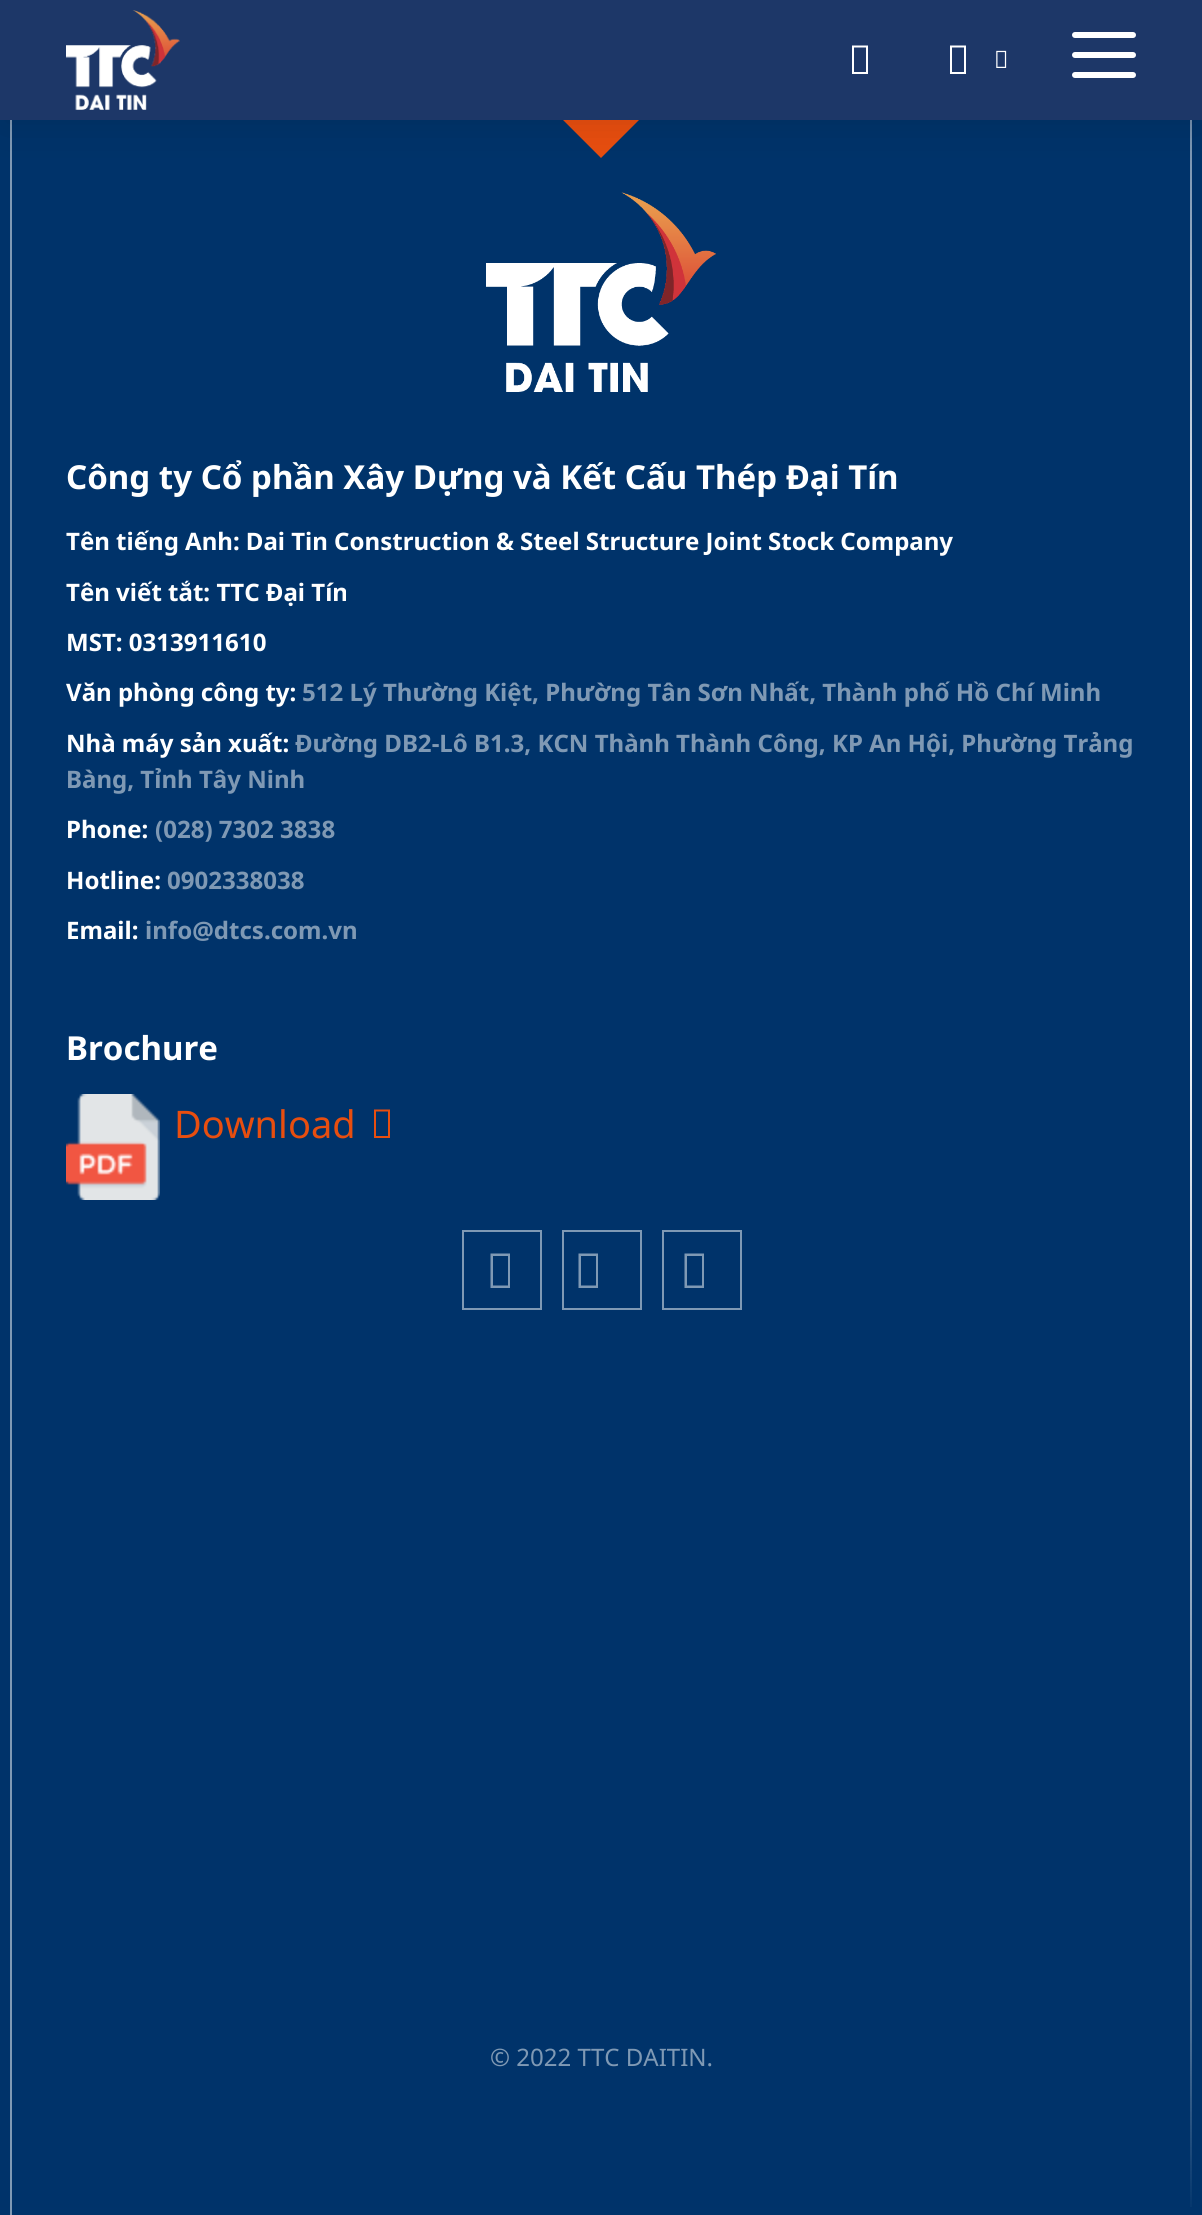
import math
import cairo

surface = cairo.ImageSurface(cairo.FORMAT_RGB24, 1202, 2215)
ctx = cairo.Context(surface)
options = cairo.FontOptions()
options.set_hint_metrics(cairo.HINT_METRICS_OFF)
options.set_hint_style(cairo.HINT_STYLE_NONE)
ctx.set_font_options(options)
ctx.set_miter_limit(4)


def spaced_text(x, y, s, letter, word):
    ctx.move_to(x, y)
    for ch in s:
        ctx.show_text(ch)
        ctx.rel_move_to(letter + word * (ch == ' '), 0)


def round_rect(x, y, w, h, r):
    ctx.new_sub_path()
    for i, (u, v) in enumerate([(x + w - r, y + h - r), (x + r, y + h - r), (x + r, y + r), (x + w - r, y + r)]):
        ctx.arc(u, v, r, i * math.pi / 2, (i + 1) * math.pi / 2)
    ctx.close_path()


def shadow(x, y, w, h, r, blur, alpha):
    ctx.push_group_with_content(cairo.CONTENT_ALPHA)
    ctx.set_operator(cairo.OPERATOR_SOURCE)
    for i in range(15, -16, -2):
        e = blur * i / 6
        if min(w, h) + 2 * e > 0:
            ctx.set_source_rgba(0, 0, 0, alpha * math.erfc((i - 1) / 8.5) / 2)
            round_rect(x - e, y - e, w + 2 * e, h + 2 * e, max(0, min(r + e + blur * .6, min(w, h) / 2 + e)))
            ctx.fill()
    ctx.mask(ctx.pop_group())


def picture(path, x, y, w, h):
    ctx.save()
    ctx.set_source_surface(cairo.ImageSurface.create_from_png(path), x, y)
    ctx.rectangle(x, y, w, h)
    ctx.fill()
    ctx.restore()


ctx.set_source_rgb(0, 0.2, 0.416)
ctx.paint()
ctx.set_source_rgb(0.91, 0.306, 0.059)
ctx.new_path()
ctx.move_to(601, 16)
ctx.line_to(672, 87)
ctx.line_to(601, 158)
ctx.line_to(530, 87)
ctx.close_path()
ctx.fill()
ctx.set_source_rgb(0.498, 0.6, 0.706)
ctx.rectangle(10, 120, 2, 2095)
ctx.fill()
picture("img5.png", 1190, 120, 2, 2087)
ctx.set_source_rgb(0, 0, 0)
shadow(0, 8, 1202, 120, 0, 20, 0.1)
ctx.set_source_rgb(0.114, 0.216, 0.408)
ctx.rectangle(0, 0, 1202, 120)
ctx.fill()
picture("img1.png", 66, 10, 114, 100)
ctx.set_source_rgb(1, 1, 1)
ctx.new_path()
ctx.move_to(852, 74)
ctx.line_to(852, 45.5)
ctx.line_to(868, 45.5)
ctx.line_to(868, 74)
ctx.close_path()
ctx.move_to(854, 72)
ctx.line_to(866, 72)
ctx.line_to(866, 47.5)
ctx.line_to(854, 47.5)
ctx.close_path()
ctx.fill()
ctx.new_path()
ctx.move_to(950, 74)
ctx.line_to(950, 45.5)
ctx.line_to(966, 45.5)
ctx.line_to(966, 74)
ctx.close_path()
ctx.move_to(952, 72)
ctx.line_to(964, 72)
ctx.line_to(964, 47.5)
ctx.line_to(952, 47.5)
ctx.close_path()
ctx.fill()
picture("img2.png", 996, 50, 11, 18)
round_rect(1072, 32, 64, 6, 3)
ctx.fill()
round_rect(1072, 52, 64, 6, 3)
ctx.fill()
round_rect(1072, 72, 64, 6, 3)
ctx.fill()
picture("img3.png", 486, 192, 230, 200)
ctx.select_font_face("Noto Sans", cairo.FONT_SLANT_NORMAL, cairo.FONT_WEIGHT_BOLD)
ctx.set_font_size(33.05)
ctx.move_to(66, 489)
ctx.show_text("Công ty Cổ phần Xây Dựng và Kết Cấu Thép Đại Tín")
ctx.set_font_size(24.05)
spaced_text(66, 550, "Tên tiếng Anh: Dai Tin Construction & Steel Structure Joint Stock Company", 0, -0.1)
ctx.move_to(66, 601)
ctx.show_text("Tên viết tắt: TTC Đại Tín")
ctx.move_to(66, 651)
ctx.show_text("MST: 0313911610")
ctx.move_to(66, 701)
ctx.show_text("Văn phòng công ty:")
ctx.set_source_rgb(0.498, 0.6, 0.706)
ctx.move_to(302, 701)
ctx.show_text("512 Lý Thường Kiệt, Phường Tân Sơn Nhất, Thành phố Hồ Chí Minh")
ctx.set_source_rgb(1, 1, 1)
ctx.move_to(66, 752)
ctx.show_text("Nhà máy sản xuất:")
ctx.set_source_rgb(0.498, 0.6, 0.706)
ctx.move_to(295, 752)
ctx.show_text("Đường DB2-Lô B1.3, KCN Thành Thành Công, KP An Hội, Phường Trảng")
ctx.move_to(66, 788)
ctx.show_text("Bàng, Tỉnh Tây Ninh")
ctx.set_source_rgb(1, 1, 1)
ctx.move_to(66, 838)
ctx.show_text("Phone:")
ctx.set_source_rgb(0.498, 0.6, 0.706)
ctx.move_to(155, 838)
ctx.show_text("(028) 7302 3838")
ctx.set_source_rgb(1, 1, 1)
ctx.move_to(66, 889)
ctx.show_text("Hotline:")
ctx.set_source_rgb(0.498, 0.6, 0.706)
ctx.move_to(167, 889)
ctx.show_text("0902338038")
ctx.set_source_rgb(1, 1, 1)
ctx.move_to(66, 939)
ctx.show_text("Email:")
ctx.set_source_rgb(0.498, 0.6, 0.706)
ctx.move_to(145, 939)
ctx.show_text("info@dtcs.com.vn")
ctx.set_font_size(33.05)
ctx.set_source_rgb(1, 1, 1)
ctx.move_to(66, 1060)
ctx.show_text("Brochure")
picture("img4.png", 66, 1094, 94, 106)
ctx.select_font_face("Noto Sans")
ctx.set_font_size(38)
ctx.set_source_rgb(0.91, 0.306, 0.059)
ctx.move_to(174, 1138)
ctx.show_text("Download")
ctx.new_path()
ctx.move_to(374, 1138)
ctx.line_to(374, 1109.5)
ctx.line_to(390, 1109.5)
ctx.line_to(390, 1138)
ctx.close_path()
ctx.move_to(376, 1136)
ctx.line_to(388, 1136)
ctx.line_to(388, 1111.5)
ctx.line_to(376, 1111.5)
ctx.close_path()
ctx.fill()
ctx.rectangle(463, 1231, 78, 78)
ctx.set_source_rgb(0.498, 0.6, 0.706)
ctx.stroke()
ctx.new_path()
ctx.move_to(490.5, 1288)
ctx.line_to(490.5, 1253.5)
ctx.line_to(510, 1253.5)
ctx.line_to(510, 1288)
ctx.close_path()
ctx.move_to(493, 1285.5)
ctx.line_to(508, 1285.5)
ctx.line_to(508, 1256)
ctx.line_to(493, 1256)
ctx.close_path()
ctx.fill()
ctx.rectangle(563, 1231, 78, 78)
ctx.stroke()
ctx.new_path()
ctx.move_to(578.5, 1288)
ctx.line_to(578.5, 1253.5)
ctx.line_to(598, 1253.5)
ctx.line_to(598, 1288)
ctx.close_path()
ctx.move_to(581, 1285.5)
ctx.line_to(596, 1285.5)
ctx.line_to(596, 1256)
ctx.line_to(581, 1256)
ctx.close_path()
ctx.fill()
ctx.rectangle(663, 1231, 78, 78)
ctx.stroke()
ctx.new_path()
ctx.move_to(684.5, 1288)
ctx.line_to(684.5, 1253.5)
ctx.line_to(704, 1253.5)
ctx.line_to(704, 1288)
ctx.close_path()
ctx.move_to(687, 1285.5)
ctx.line_to(702, 1285.5)
ctx.line_to(702, 1256)
ctx.line_to(687, 1256)
ctx.close_path()
ctx.fill()
ctx.set_font_size(24.05)
ctx.move_to(490, 2066)
ctx.show_text("© 2022 TTC DAITIN.")
surface.write_to_png("page.png")
